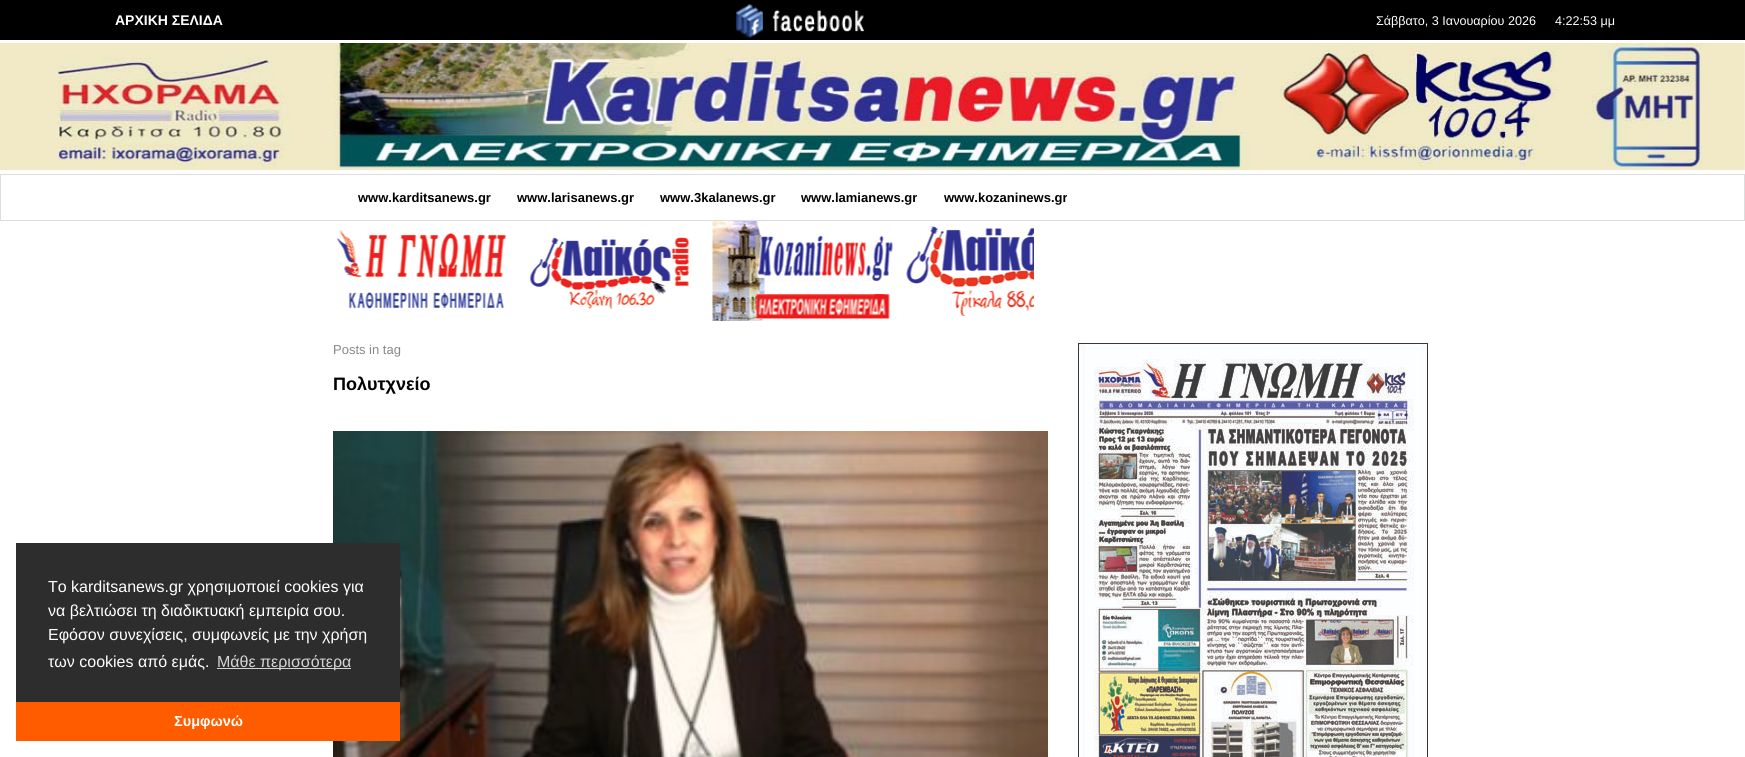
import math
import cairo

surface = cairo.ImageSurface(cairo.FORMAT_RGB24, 1745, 757)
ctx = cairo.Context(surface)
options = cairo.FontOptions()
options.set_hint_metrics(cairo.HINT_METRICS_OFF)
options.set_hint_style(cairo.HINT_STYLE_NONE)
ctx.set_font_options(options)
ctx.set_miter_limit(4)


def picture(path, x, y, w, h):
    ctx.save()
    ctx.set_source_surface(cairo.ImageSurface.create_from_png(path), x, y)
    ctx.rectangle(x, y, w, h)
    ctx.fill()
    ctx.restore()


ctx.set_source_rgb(1, 1, 1)
ctx.paint()
ctx.set_source_rgb(0, 0, 0)
ctx.rectangle(0, 0, 1745, 40)
ctx.fill()
ctx.select_font_face("Liberation Sans", cairo.FONT_SLANT_NORMAL, cairo.FONT_WEIGHT_BOLD)
ctx.set_font_size(14)
ctx.set_source_rgb(1, 1, 1)
ctx.move_to(115, 25)
ctx.show_text("ΑΡΧΙΚΗ ΣΕΛΙΔΑ")
picture("img1.png", 736, 4, 129, 34)
ctx.select_font_face("Liberation Sans")
ctx.set_font_size(12.6)
ctx.move_to(1376, 25)
ctx.show_text("Σάββατο, 3 Ιανουαρίου 2026")
ctx.move_to(1555, 25)
ctx.show_text("4:22:53 μμ")
picture("img2.png", 0, 43, 1745, 127)
ctx.rectangle(0.5, 174.5, 1744, 46)
ctx.set_source_rgb(0.867, 0.867, 0.867)
ctx.set_line_width(1)
ctx.stroke()
ctx.select_font_face("Liberation Sans", cairo.FONT_SLANT_NORMAL, cairo.FONT_WEIGHT_BOLD)
ctx.set_font_size(13)
ctx.set_source_rgb(0, 0, 0)
ctx.move_to(358, 202)
ctx.show_text("www.karditsanews.gr")
ctx.move_to(517, 202)
ctx.show_text("www.larisanews.gr")
ctx.move_to(660, 202)
ctx.show_text("www.3kalanews.gr")
ctx.move_to(801, 202)
ctx.show_text("www.lamianews.gr")
ctx.move_to(944, 202)
ctx.show_text("www.kozaninews.gr")
picture("img3.png", 336, 230, 171, 79)
picture("img4.png", 529, 237, 161, 72)
picture("img5.png", 712, 221, 181, 100)
picture("img6.png", 906, 226, 128, 90)
ctx.select_font_face("Liberation Sans")
ctx.set_source_rgb(0.533, 0.533, 0.533)
ctx.move_to(333, 354)
ctx.show_text("Posts in tag")
ctx.select_font_face("Liberation Sans", cairo.FONT_SLANT_NORMAL, cairo.FONT_WEIGHT_BOLD)
ctx.set_font_size(18)
ctx.set_source_rgb(0, 0, 0)
ctx.move_to(333, 390)
ctx.show_text("Πολυτχνείο")
picture("img7.png", 333, 431, 715, 326)
picture("img8.png", 1078, 343, 350, 414)
ctx.set_source_rgb(0.176, 0.176, 0.176)
ctx.rectangle(16, 543, 384, 159)
ctx.fill()
ctx.select_font_face("Liberation Sans")
ctx.set_font_size(16)
ctx.set_source_rgb(1, 1, 1)
ctx.move_to(48, 592)
ctx.show_text("Το karditsanews.gr χρησιμοποιεί cookies για")
ctx.move_to(48, 616)
ctx.show_text("να βελτιώσει τη διαδικτυακή εμπειρία σου.")
ctx.move_to(48, 640)
ctx.show_text("Εφόσον συνεχίσεις, συμφωνείς με την χρήση")
ctx.move_to(48, 667)
ctx.show_text("των cookies από εμάς.")
ctx.set_source_rgb(0.835, 0.835, 0.835)
ctx.rectangle(217, 668, 134, 1)
ctx.fill()
ctx.move_to(217, 667)
ctx.show_text("Μάθε περισσότερα")
ctx.set_source_rgb(1, 0.361, 0)
ctx.rectangle(16, 702, 384, 39)
ctx.fill()
ctx.select_font_face("Liberation Sans", cairo.FONT_SLANT_NORMAL, cairo.FONT_WEIGHT_BOLD)
ctx.set_font_size(14.5)
ctx.set_source_rgb(1, 1, 1)
ctx.move_to(174, 726)
ctx.show_text("Συμφωνώ")
surface.write_to_png("page.png")
